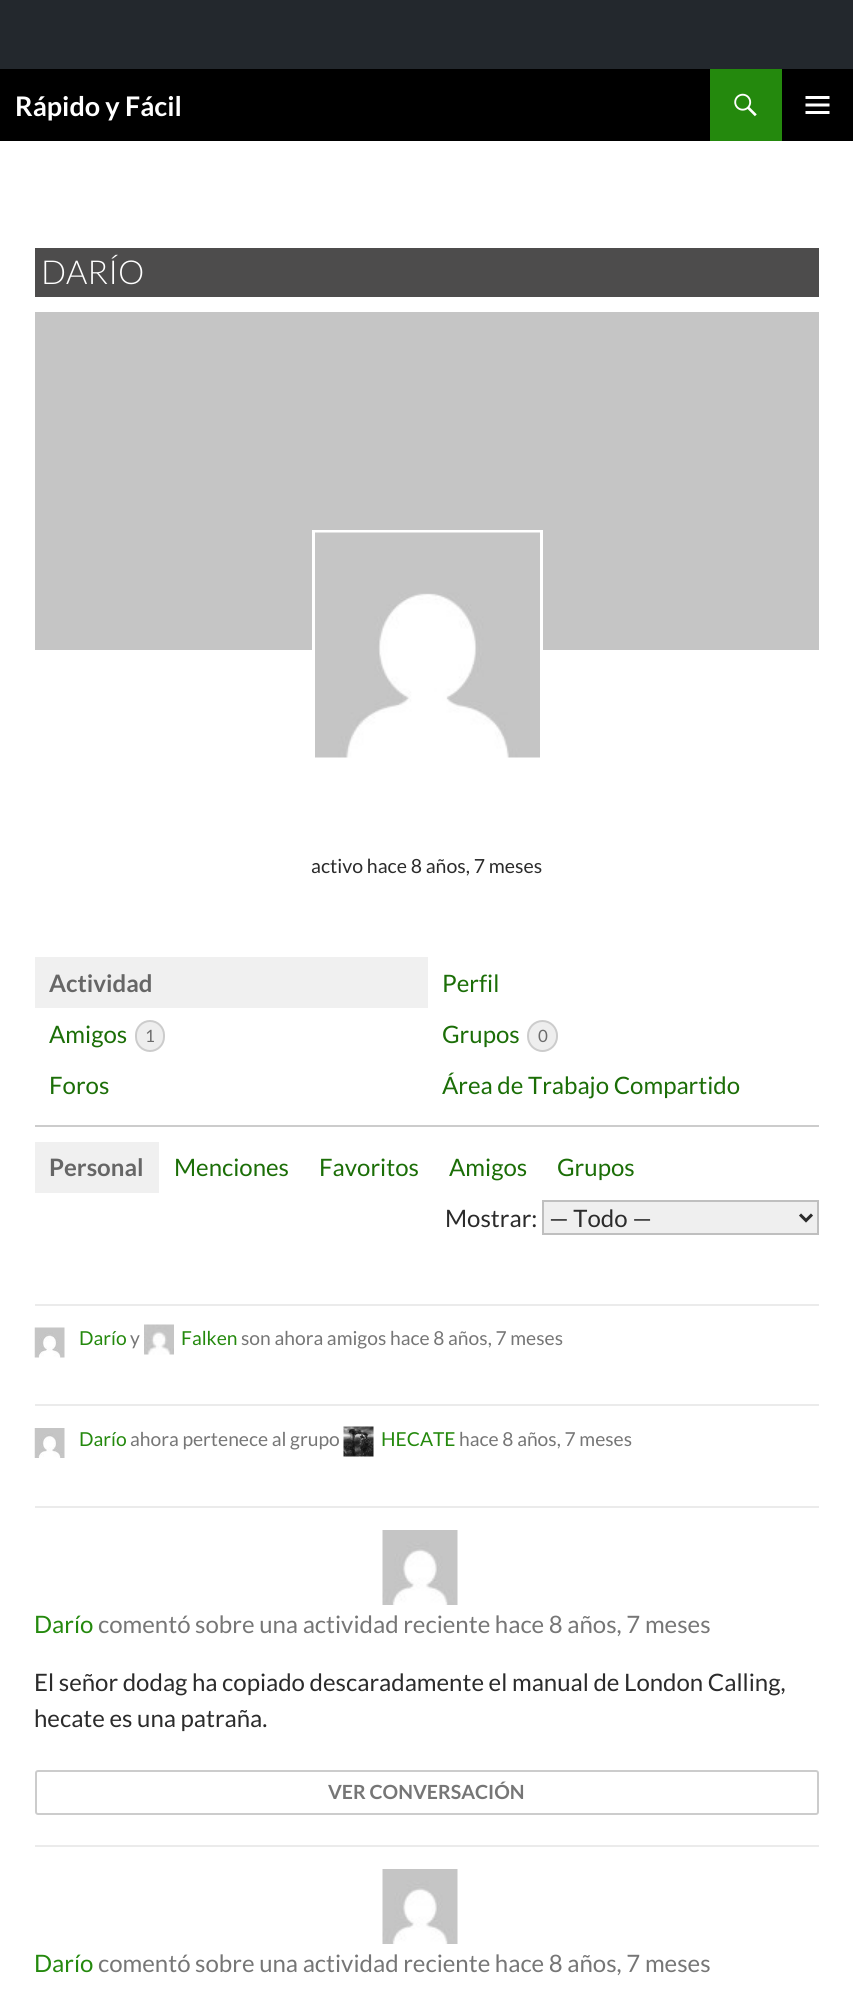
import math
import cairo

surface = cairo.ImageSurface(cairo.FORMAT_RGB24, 853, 1999)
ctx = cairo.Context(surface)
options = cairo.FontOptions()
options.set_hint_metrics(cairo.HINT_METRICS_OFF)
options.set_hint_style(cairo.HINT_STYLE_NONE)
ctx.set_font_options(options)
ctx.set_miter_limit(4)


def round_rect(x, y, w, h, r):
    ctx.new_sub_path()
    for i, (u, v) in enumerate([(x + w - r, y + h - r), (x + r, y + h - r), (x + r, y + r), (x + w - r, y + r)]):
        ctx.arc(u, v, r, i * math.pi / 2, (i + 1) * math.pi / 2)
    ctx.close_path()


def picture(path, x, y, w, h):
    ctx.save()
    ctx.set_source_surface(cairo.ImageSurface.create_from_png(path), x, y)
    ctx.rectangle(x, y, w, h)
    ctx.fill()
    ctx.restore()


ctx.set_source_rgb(1, 1, 1)
ctx.paint()
ctx.set_source_rgb(0.137, 0.157, 0.176)
ctx.rectangle(0, 0, 853, 69)
ctx.fill()
ctx.set_source_rgb(0, 0, 0)
ctx.rectangle(0, 69, 853, 72)
ctx.fill()
ctx.select_font_face("Lato", cairo.FONT_SLANT_NORMAL, cairo.FONT_WEIGHT_BOLD)
ctx.set_font_size(27)
ctx.set_source_rgb(1, 1, 1)
ctx.move_to(15, 116)
ctx.show_text("Rápido y Fácil")
ctx.set_source_rgb(0.141, 0.537, 0.051)
ctx.rectangle(710, 69, 72, 72)
ctx.fill()
picture("img1.png", 734, 93, 23, 24)
picture("img2.png", 805, 96, 25, 18)
ctx.set_source_rgb(0.302, 0.298, 0.298)
ctx.rectangle(35, 248, 784, 49)
ctx.fill()
ctx.select_font_face("Lato Light")
ctx.set_font_size(33)
ctx.set_source_rgb(1, 1, 1)
ctx.move_to(41, 284)
ctx.show_text("DARÍO")
ctx.set_source_rgb(0.773, 0.773, 0.773)
ctx.rectangle(35, 312, 784, 338)
ctx.fill()
ctx.rectangle(313.5, 531.5, 228, 228)
ctx.set_source_rgb(1, 1, 1)
ctx.set_line_width(3)
ctx.stroke()
picture("img3.png", 315, 532, 225, 226)
ctx.select_font_face("Lato")
ctx.set_font_size(19.5)
ctx.set_source_rgb(0.169, 0.169, 0.169)
ctx.move_to(311, 873)
ctx.show_text("activo hace 8 años, 7 meses")
ctx.set_source_rgb(0.8, 0.8, 0.8)
ctx.rectangle(35, 1125, 784, 2)
ctx.fill()
ctx.set_source_rgb(0.941, 0.941, 0.941)
ctx.rectangle(35, 957, 393, 51)
ctx.fill()
ctx.select_font_face("Lato", cairo.FONT_SLANT_NORMAL, cairo.FONT_WEIGHT_BOLD)
ctx.set_font_size(24)
ctx.set_source_rgb(0.4, 0.4, 0.4)
ctx.move_to(49, 992)
ctx.show_text("Actividad")
ctx.select_font_face("Lato")
ctx.set_source_rgb(0.106, 0.431, 0.031)
ctx.move_to(442, 992)
ctx.show_text("Perfil")
ctx.move_to(49, 1043)
ctx.show_text("Amigos")
ctx.set_source_rgb(0.933, 0.933, 0.933)
round_rect(136, 1021, 28, 30, 14)
ctx.fill_preserve()
ctx.set_source_rgb(0.8, 0.8, 0.8)
ctx.set_line_width(2)
ctx.stroke()
ctx.set_font_size(17)
ctx.set_source_rgb(0.424, 0.424, 0.424)
ctx.move_to(145, 1042)
ctx.show_text("1")
ctx.set_font_size(24)
ctx.set_source_rgb(0.106, 0.431, 0.031)
ctx.move_to(442, 1043)
ctx.show_text("Grupos")
ctx.set_source_rgb(0.933, 0.933, 0.933)
round_rect(528, 1021, 29, 30, 14.5)
ctx.fill_preserve()
ctx.set_source_rgb(0.8, 0.8, 0.8)
ctx.stroke()
ctx.set_font_size(17)
ctx.set_source_rgb(0.424, 0.424, 0.424)
ctx.move_to(538, 1042)
ctx.show_text("0")
ctx.set_font_size(24)
ctx.set_source_rgb(0.106, 0.431, 0.031)
ctx.move_to(49, 1094)
ctx.show_text("Foros")
ctx.move_to(442, 1094)
ctx.show_text("Área de Trabajo Compartido")
ctx.set_source_rgb(0.941, 0.941, 0.941)
ctx.rectangle(35, 1142, 124, 51)
ctx.fill()
ctx.select_font_face("Lato", cairo.FONT_SLANT_NORMAL, cairo.FONT_WEIGHT_BOLD)
ctx.set_source_rgb(0.4, 0.4, 0.4)
ctx.move_to(49, 1176)
ctx.show_text("Personal")
ctx.select_font_face("Lato")
ctx.set_source_rgb(0.106, 0.431, 0.031)
ctx.move_to(174, 1176)
ctx.show_text("Menciones")
ctx.move_to(319, 1176)
ctx.show_text("Favoritos")
ctx.move_to(449, 1176)
ctx.show_text("Amigos")
ctx.move_to(557, 1176)
ctx.show_text("Grupos")
ctx.set_source_rgb(0.169, 0.169, 0.169)
ctx.move_to(445, 1227)
ctx.show_text("Mostrar:")
ctx.set_source_rgb(0.937, 0.937, 0.937)
ctx.rectangle(543, 1201, 275, 33)
ctx.fill_preserve()
ctx.set_source_rgb(0.749, 0.749, 0.749)
ctx.stroke()
ctx.new_path()
ctx.move_to(800, 1214.5)
ctx.line_to(806, 1220.5)
ctx.line_to(812, 1214.5)
ctx.set_source_rgb(0.169, 0.169, 0.169)
ctx.set_line_width(3)
ctx.stroke()
ctx.move_to(549, 1227)
ctx.show_text("— Todo —")
ctx.set_source_rgb(0.918, 0.918, 0.918)
ctx.rectangle(35, 1304, 784, 2)
ctx.fill()
ctx.rectangle(35, 1404, 784, 2)
ctx.fill()
picture("img4.png", 34, 1327, 31, 31)
ctx.set_font_size(19.25)
ctx.set_source_rgb(0.141, 0.537, 0.051)
ctx.move_to(79, 1345)
ctx.show_text("Darío")
ctx.set_source_rgb(0.463, 0.463, 0.463)
ctx.move_to(130, 1345)
ctx.show_text("y")
picture("img5.png", 144, 1324, 30, 31)
ctx.set_source_rgb(0.141, 0.537, 0.051)
ctx.move_to(181, 1345)
ctx.show_text("Falken")
ctx.set_source_rgb(0.463, 0.463, 0.463)
ctx.move_to(241, 1345)
ctx.show_text("son ahora amigos hace 8 años, 7 meses")
ctx.set_source_rgb(0.918, 0.918, 0.918)
ctx.rectangle(35, 1506, 784, 2)
ctx.fill()
picture("img6.png", 34, 1428, 31, 30)
ctx.set_source_rgb(0.141, 0.537, 0.051)
ctx.move_to(79, 1446)
ctx.show_text("Darío")
ctx.set_source_rgb(0.463, 0.463, 0.463)
ctx.move_to(130, 1446)
ctx.show_text("ahora pertenece al grupo")
picture("img7.png", 343, 1426, 31, 31)
ctx.set_source_rgb(0.141, 0.537, 0.051)
ctx.move_to(381, 1446)
ctx.show_text("HECATE")
ctx.set_source_rgb(0.463, 0.463, 0.463)
ctx.move_to(459, 1446)
ctx.show_text("hace 8 años, 7 meses")
ctx.set_source_rgb(0.918, 0.918, 0.918)
ctx.rectangle(35, 1845, 784, 2)
ctx.fill()
picture("img8.png", 382, 1530, 76, 75)
ctx.set_font_size(24)
ctx.set_source_rgb(0.141, 0.537, 0.051)
ctx.move_to(34, 1633)
ctx.show_text("Darío")
ctx.set_source_rgb(0.463, 0.463, 0.463)
ctx.move_to(98, 1633)
ctx.show_text("comentó sobre una actividad reciente hace 8 años, 7 meses")
ctx.set_source_rgb(0.169, 0.169, 0.169)
ctx.move_to(34, 1691)
ctx.show_text("El señor dodag ha copiado descaradamente el manual de London Calling,")
ctx.move_to(34, 1727)
ctx.show_text("hecate es una patraña.")
round_rect(36, 1771, 782, 43, 2)
ctx.set_source_rgb(0.8, 0.8, 0.8)
ctx.set_line_width(2)
ctx.stroke()
ctx.select_font_face("Lato", cairo.FONT_SLANT_NORMAL, cairo.FONT_WEIGHT_BOLD)
ctx.set_font_size(19.5)
ctx.set_source_rgb(0.463, 0.463, 0.463)
ctx.move_to(328, 1799)
ctx.show_text("VER CONVERSACIÓN")
picture("img8.png", 382, 1869, 76, 75)
ctx.select_font_face("Lato")
ctx.set_font_size(24)
ctx.set_source_rgb(0.141, 0.537, 0.051)
ctx.move_to(34, 1972)
ctx.show_text("Darío")
ctx.set_source_rgb(0.463, 0.463, 0.463)
ctx.move_to(98, 1972)
ctx.show_text("comentó sobre una actividad reciente hace 8 años, 7 meses")
surface.write_to_png("page.png")
